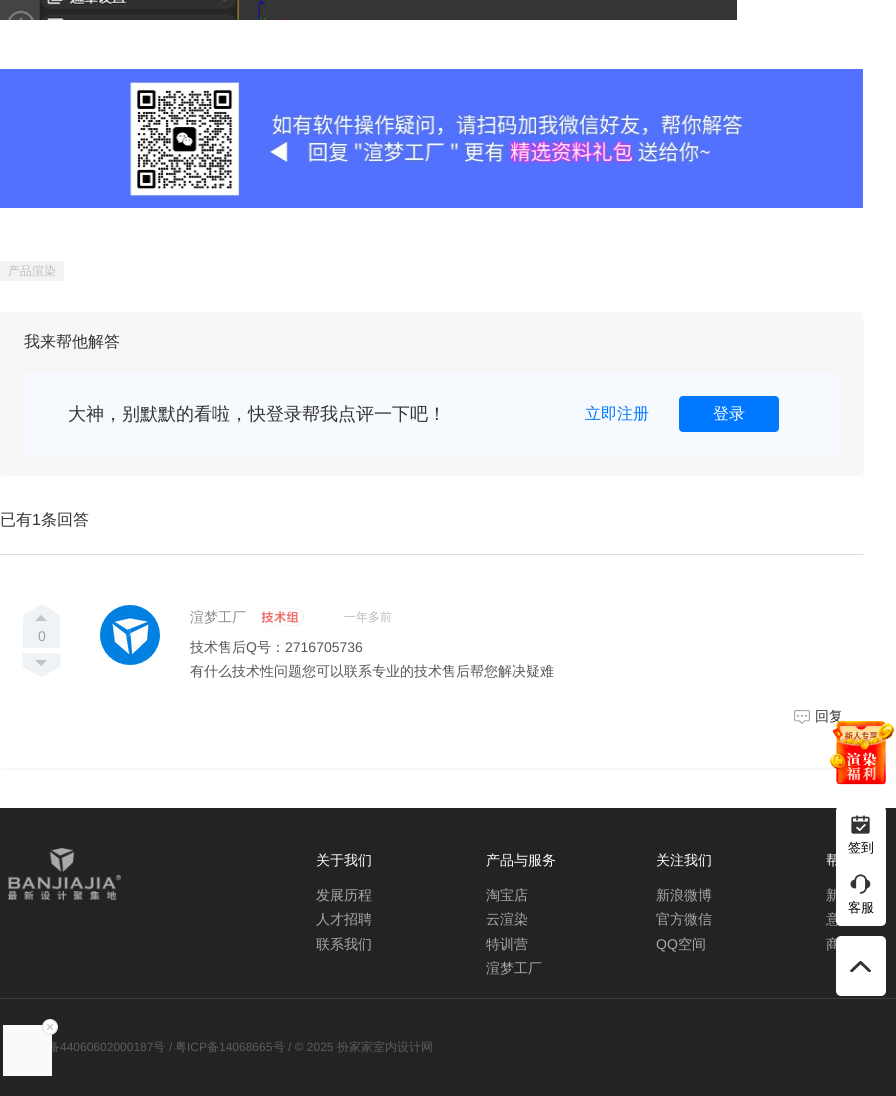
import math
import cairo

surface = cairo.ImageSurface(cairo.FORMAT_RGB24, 896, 1096)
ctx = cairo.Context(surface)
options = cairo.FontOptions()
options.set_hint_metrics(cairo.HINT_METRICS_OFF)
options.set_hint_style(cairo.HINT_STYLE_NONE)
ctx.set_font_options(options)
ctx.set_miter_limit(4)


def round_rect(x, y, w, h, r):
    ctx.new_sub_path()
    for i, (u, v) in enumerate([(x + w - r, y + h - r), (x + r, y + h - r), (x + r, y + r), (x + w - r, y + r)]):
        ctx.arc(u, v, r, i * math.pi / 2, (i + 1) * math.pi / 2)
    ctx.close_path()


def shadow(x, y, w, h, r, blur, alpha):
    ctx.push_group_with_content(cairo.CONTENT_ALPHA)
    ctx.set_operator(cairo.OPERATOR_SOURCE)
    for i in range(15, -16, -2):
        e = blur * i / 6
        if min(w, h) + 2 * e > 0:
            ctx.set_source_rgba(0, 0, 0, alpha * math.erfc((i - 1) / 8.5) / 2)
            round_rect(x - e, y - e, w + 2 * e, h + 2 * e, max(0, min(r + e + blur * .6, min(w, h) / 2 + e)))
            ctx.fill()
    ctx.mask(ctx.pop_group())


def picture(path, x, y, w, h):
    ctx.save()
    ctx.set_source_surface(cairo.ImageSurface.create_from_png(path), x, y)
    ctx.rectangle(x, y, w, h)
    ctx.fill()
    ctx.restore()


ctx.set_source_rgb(1, 1, 1)
ctx.paint()
picture("img1.png", 0, 0, 737, 20)
picture("img2.png", 0, 69, 863, 139)
ctx.set_source_rgb(0.953, 0.953, 0.953)
ctx.rectangle(0, 261, 64, 20)
ctx.fill()
ctx.select_font_face("WenQuanYi Zen Hei Medium")
ctx.set_font_size(12)
ctx.set_source_rgb(0.733, 0.733, 0.733)
ctx.move_to(8, 275)
ctx.show_text("产品渲染")
ctx.set_source_rgb(0, 0, 0)
shadow(0, 314, 863, 456, 5, 2, 0.04)
ctx.set_source_rgb(1, 1, 1)
round_rect(0, 312, 863, 456, 5)
ctx.fill()
ctx.set_source_rgb(0.965, 0.965, 0.965)
round_rect(0, 312, 863, 164, 4)
ctx.fill()
ctx.set_font_size(16)
ctx.set_source_rgb(0.2, 0.2, 0.2)
ctx.move_to(24, 347)
ctx.show_text("我来帮他解答")
ctx.set_source_rgb(0.961, 0.976, 0.996)
round_rect(24, 372, 815, 84, 4)
ctx.fill()
ctx.set_font_size(18)
ctx.set_source_rgb(0.2, 0.2, 0.2)
ctx.move_to(68, 420)
ctx.show_text("大神，别默默的看啦，快登录帮我点评一下吧！")
ctx.set_font_size(16)
ctx.set_source_rgb(0, 0.471, 1)
ctx.move_to(585, 419)
ctx.show_text("立即注册")
round_rect(679, 396, 100, 36, 4)
ctx.fill()
ctx.set_source_rgb(1, 1, 1)
ctx.move_to(713, 419)
ctx.show_text("登录")
ctx.set_source_rgb(0.867, 0.867, 0.867)
ctx.rectangle(0, 554, 863, 1)
ctx.fill()
ctx.set_source_rgb(0.2, 0.2, 0.2)
ctx.move_to(0, 525)
ctx.show_text("已有")
ctx.select_font_face("Liberation Sans")
ctx.move_to(32, 525)
ctx.show_text("1")
ctx.select_font_face("WenQuanYi Zen Hei Medium")
ctx.move_to(41, 525)
ctx.show_text("条回答")
ctx.set_source_rgb(0.937, 0.953, 0.961)
ctx.new_path()
ctx.move_to(58, 614)
ctx.curve_to(62, 617, 60, 623, 60, 628)
ctx.line_to(60, 648)
ctx.line_to(23, 648)
ctx.line_to(23, 622)
ctx.curve_to(23, 613, 24, 614, 32, 610)
ctx.line_to(40, 605)
ctx.curve_to(44, 604, 54, 611, 58, 614)
ctx.close_path()
ctx.fill()
ctx.set_source_rgb(0.741, 0.765, 0.78)
ctx.new_path()
ctx.move_to(47, 621)
ctx.line_to(35, 621)
ctx.line_to(41, 615)
ctx.close_path()
ctx.fill()
ctx.select_font_face("Liberation Sans")
ctx.set_font_size(14)
ctx.set_source_rgb(0.6, 0.631, 0.651)
ctx.move_to(38, 641)
ctx.show_text("0")
picture("img3.png", 22, 653, 39, 24)
ctx.set_source_rgb(0.741, 0.765, 0.78)
ctx.new_path()
ctx.move_to(35, 660)
ctx.line_to(47, 660)
ctx.line_to(41, 666)
ctx.close_path()
ctx.fill()
picture("img4.png", 100, 605, 60, 60)
ctx.select_font_face("WenQuanYi Zen Hei Medium")
ctx.set_source_rgb(0.533, 0.533, 0.533)
ctx.move_to(190, 622)
ctx.show_text("渲梦工厂")
picture("img5.png", 261, 608, 43, 18)
ctx.set_font_size(12)
ctx.set_source_rgb(0.733, 0.733, 0.733)
ctx.move_to(344, 621)
ctx.show_text("一年多前")
ctx.set_font_size(14)
ctx.set_source_rgb(0.337, 0.337, 0.337)
ctx.move_to(190, 652)
ctx.show_text("技术售后")
ctx.select_font_face("Liberation Sans")
ctx.move_to(246, 652)
ctx.show_text("Q")
ctx.select_font_face("WenQuanYi Zen Hei Medium")
ctx.move_to(257, 652)
ctx.show_text("号：")
ctx.select_font_face("Liberation Sans")
ctx.move_to(285, 652)
ctx.show_text("2716705736")
ctx.select_font_face("WenQuanYi Zen Hei Medium")
ctx.move_to(190, 676)
ctx.show_text("有什么技术性问题您可以联系专业的技术售后帮您解决疑难")
picture("img6.png", 794, 710, 16, 14)
ctx.set_source_rgb(0.2, 0.2, 0.2)
ctx.move_to(815, 721)
ctx.show_text("回复")
ctx.set_source_rgb(0.137, 0.137, 0.137)
ctx.rectangle(0, 808, 896, 288)
ctx.fill()
ctx.set_font_size(12)
ctx.set_source_rgb(0.361, 0.361, 0.361)
ctx.move_to(48, 1051)
ctx.show_text("备")
ctx.set_source_rgb(0.98, 0.98, 0.98)
ctx.rectangle(3, 1025, 49, 51)
ctx.fill()
ctx.set_source_rgb(1, 1, 1)
ctx.arc(50, 1027, 7.5, 0, 2 * math.pi)
ctx.fill_preserve()
ctx.set_source_rgb(0.871, 0.871, 0.871)
ctx.set_line_width(1)
ctx.stroke()
ctx.set_source_rgb(0.78, 0.78, 0.78)
ctx.rectangle(47, 1024, 6, 6)
ctx.fill()
ctx.set_source_rgb(1, 1, 1)
ctx.new_path()
ctx.move_to(46, 1022)
ctx.line_to(54, 1022)
ctx.line_to(50, 1026)
ctx.close_path()
ctx.fill()
ctx.new_path()
ctx.move_to(45, 1031)
ctx.line_to(45, 1023)
ctx.line_to(49, 1027)
ctx.close_path()
ctx.fill()
ctx.new_path()
ctx.move_to(54, 1032)
ctx.line_to(46, 1032)
ctx.line_to(50, 1028)
ctx.close_path()
ctx.fill()
ctx.new_path()
ctx.move_to(55, 1023)
ctx.line_to(55, 1031)
ctx.line_to(51, 1027)
ctx.close_path()
ctx.fill()
ctx.set_source_rgb(0.243, 0.243, 0.243)
ctx.rectangle(0, 998, 896, 1)
ctx.fill()
picture("img7.png", 8, 848, 113, 52)
ctx.set_font_size(14)
ctx.set_source_rgb(1, 1, 1)
ctx.move_to(316, 865)
ctx.show_text("关于我们")
ctx.set_source_rgb(0.663, 0.659, 0.659)
ctx.move_to(316, 900)
ctx.show_text("发展历程")
ctx.move_to(316, 924)
ctx.show_text("人才招聘")
ctx.move_to(316, 949)
ctx.show_text("联系我们")
ctx.set_source_rgb(1, 1, 1)
ctx.move_to(486, 865)
ctx.show_text("产品与服务")
ctx.set_source_rgb(0.663, 0.659, 0.659)
ctx.move_to(486, 900)
ctx.show_text("淘宝店")
ctx.move_to(486, 924)
ctx.show_text("云渲染")
ctx.move_to(486, 949)
ctx.show_text("特训营")
ctx.move_to(486, 973)
ctx.show_text("渲梦工厂")
ctx.set_source_rgb(1, 1, 1)
ctx.move_to(656, 865)
ctx.show_text("关注我们")
ctx.set_source_rgb(0.663, 0.659, 0.659)
ctx.move_to(656, 900)
ctx.show_text("新浪微博")
ctx.move_to(656, 924)
ctx.show_text("官方微信")
ctx.select_font_face("Liberation Sans")
ctx.move_to(656, 949)
ctx.show_text("QQ")
ctx.select_font_face("WenQuanYi Zen Hei Medium")
ctx.move_to(678, 949)
ctx.show_text("空间")
ctx.set_source_rgb(1, 1, 1)
ctx.move_to(826, 865)
ctx.show_text("帮")
ctx.set_source_rgb(0.663, 0.659, 0.659)
ctx.move_to(826, 900)
ctx.show_text("新")
ctx.move_to(826, 924)
ctx.show_text("意")
ctx.move_to(826, 949)
ctx.show_text("商")
ctx.select_font_face("Liberation Sans")
ctx.set_font_size(12)
ctx.set_source_rgb(0.361, 0.361, 0.361)
ctx.move_to(60, 1051)
ctx.show_text("44060602000187")
ctx.select_font_face("WenQuanYi Zen Hei Medium")
ctx.move_to(153, 1051)
ctx.show_text("号")
ctx.select_font_face("Liberation Sans")
ctx.move_to(169, 1051)
ctx.show_text("/")
ctx.select_font_face("WenQuanYi Zen Hei Medium")
ctx.move_to(175, 1051)
ctx.show_text("粤")
ctx.select_font_face("Liberation Sans")
ctx.move_to(187, 1051)
ctx.show_text("ICP")
ctx.select_font_face("WenQuanYi Zen Hei Medium")
ctx.move_to(207, 1051)
ctx.show_text("备")
ctx.select_font_face("Liberation Sans")
ctx.move_to(219, 1051)
ctx.show_text("14068665")
ctx.select_font_face("WenQuanYi Zen Hei Medium")
ctx.move_to(273, 1051)
ctx.show_text("号")
ctx.select_font_face("Liberation Sans")
ctx.move_to(288, 1051)
ctx.show_text("/ © 2025")
ctx.select_font_face("WenQuanYi Zen Hei Medium")
ctx.move_to(337, 1051)
ctx.show_text("扮家家室内设计网")
picture("img8.png", 829, 721, 65, 64)
ctx.set_source_rgb(1, 1, 1)
ctx.new_path()
ctx.move_to(841, 806)
ctx.line_to(881, 806)
ctx.curve_to(884, 806, 886, 808, 886, 811)
ctx.line_to(886, 866)
ctx.line_to(836, 866)
ctx.line_to(836, 811)
ctx.curve_to(836, 808, 838, 806, 841, 806)
ctx.close_path()
ctx.fill()
picture("img9.png", 851, 815, 19, 19)
ctx.set_font_size(13)
ctx.set_source_rgb(0, 0, 0)
ctx.move_to(848, 852)
ctx.show_text("签到")
ctx.set_source_rgb(1, 1, 1)
ctx.new_path()
ctx.move_to(836, 866)
ctx.line_to(886, 866)
ctx.line_to(886, 921)
ctx.curve_to(886, 924, 884, 926, 881, 926)
ctx.line_to(841, 926)
ctx.curve_to(838, 926, 836, 924, 836, 921)
ctx.close_path()
ctx.fill()
picture("img10.png", 850, 874, 21, 20)
ctx.set_source_rgb(0, 0, 0)
ctx.move_to(848, 912)
ctx.show_text("客服")
ctx.set_source_rgb(1, 1, 1)
round_rect(836, 936, 50, 60, 5)
ctx.fill()
picture("img11.png", 850, 961, 21, 11)
surface.write_to_png("page.png")
